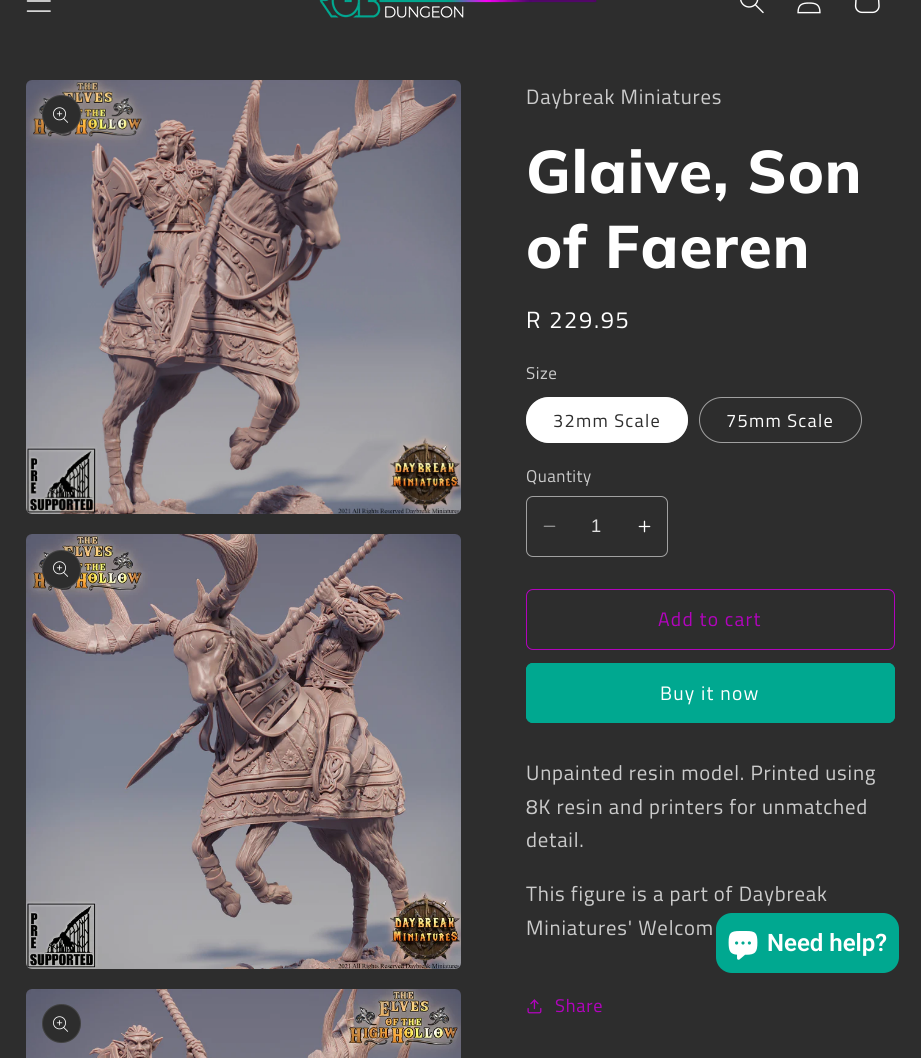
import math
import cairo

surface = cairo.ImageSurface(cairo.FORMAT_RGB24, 921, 1058)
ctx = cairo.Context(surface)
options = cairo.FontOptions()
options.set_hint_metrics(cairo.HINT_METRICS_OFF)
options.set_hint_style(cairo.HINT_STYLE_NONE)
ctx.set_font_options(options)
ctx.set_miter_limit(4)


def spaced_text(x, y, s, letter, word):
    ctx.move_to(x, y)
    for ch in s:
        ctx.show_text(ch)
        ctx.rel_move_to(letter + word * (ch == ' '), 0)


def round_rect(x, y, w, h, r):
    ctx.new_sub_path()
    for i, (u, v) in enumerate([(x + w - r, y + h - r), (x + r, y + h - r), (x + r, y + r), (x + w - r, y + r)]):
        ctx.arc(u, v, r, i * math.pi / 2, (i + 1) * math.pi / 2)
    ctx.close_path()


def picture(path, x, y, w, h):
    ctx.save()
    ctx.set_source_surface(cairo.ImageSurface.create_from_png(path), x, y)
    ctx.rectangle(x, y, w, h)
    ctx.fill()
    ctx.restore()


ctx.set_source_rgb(0.176, 0.176, 0.176)
ctx.paint()
picture("img1.png", 26, 0, 25, 12)
picture("img2.png", 319, 0, 278, 18)
picture("img3.png", 740, 0, 24, 14)
picture("img4.png", 797, 2, 24, 12)
picture("img5.png", 854, 0, 26, 14)
picture("img6.png", 26, 80, 435, 434)
ctx.set_source_rgb(0.176, 0.176, 0.176)
ctx.arc(61.5, 114.5, 19.5, 0, 2 * math.pi)
ctx.fill()
ctx.arc(61.5, 114.5, 19, 0, 2 * math.pi)
ctx.set_source_rgba(1, 1, 1, 0.1)
ctx.set_line_width(1)
ctx.stroke()
picture("img7.png", 53, 107, 16, 16)
picture("img8.png", 26, 534, 435, 435)
ctx.set_source_rgb(0.176, 0.176, 0.176)
ctx.arc(61.5, 569.5, 19.5, 0, 2 * math.pi)
ctx.fill()
ctx.arc(61.5, 569.5, 19, 0, 2 * math.pi)
ctx.set_source_rgba(1, 1, 1, 0.1)
ctx.stroke()
picture("img7.png", 53, 561, 16, 16)
picture("img9.png", 26, 989, 435, 69)
ctx.set_source_rgb(0.176, 0.176, 0.176)
ctx.arc(61.5, 1023.5, 19.5, 0, 2 * math.pi)
ctx.fill()
ctx.arc(61.5, 1023.5, 19, 0, 2 * math.pi)
ctx.set_source_rgba(1, 1, 1, 0.1)
ctx.stroke()
picture("img7.png", 53, 1016, 16, 16)
ctx.select_font_face("Titillium Web")
ctx.set_font_size(20.75)
ctx.set_source_rgb(0.796, 0.796, 0.796)
spaced_text(526, 104, "Daybreak Miniatures", 0.8, 0)
ctx.select_font_face("Muli ExtraBold")
ctx.set_font_size(60)
ctx.set_source_rgb(1, 1, 1)
spaced_text(526, 193, "Glaive, Son", 0.9, 0)
spaced_text(526, 268, "of Faeren", 0.9, 0)
ctx.select_font_face("Titillium Web")
ctx.set_font_size(23.5)
spaced_text(526, 328, "R 229.95", 1.75, 0)
ctx.set_font_size(17)
ctx.set_source_rgb(0.796, 0.796, 0.796)
spaced_text(526, 379, "Size", 0.5, 0)
ctx.set_source_rgb(1, 1, 1)
round_rect(526, 397, 162, 46, 23)
ctx.fill()
round_rect(526.5, 397.5, 161, 45, 22.5)
ctx.set_source_rgba(1, 1, 1, 0.55)
ctx.stroke()
ctx.set_font_size(18.25)
ctx.set_source_rgb(0.176, 0.176, 0.176)
spaced_text(553, 427, "32mm Scale", 1.25, 0)
round_rect(699.5, 397.5, 162, 45, 22.5)
ctx.set_source_rgb(0.631, 0.631, 0.631)
ctx.stroke()
ctx.set_source_rgb(1, 1, 1)
spaced_text(726, 427, "75mm Scale", 1.25, 0)
ctx.set_font_size(17)
ctx.set_source_rgb(0.796, 0.796, 0.796)
spaced_text(526, 482, "Quantity", 0.5, 0)
picture("img10.png", 543, 525, 13, 2)
picture("img11.png", 638, 520, 13, 13)
round_rect(526.5, 496.5, 141, 60, 6.5)
ctx.set_source_rgb(0.631, 0.631, 0.631)
ctx.stroke()
ctx.select_font_face("Liberation Sans")
ctx.set_font_size(18.25)
ctx.set_source_rgb(0.878, 0.878, 0.878)
ctx.move_to(591, 532)
ctx.show_text("1")
round_rect(526.5, 589.5, 368, 60, 6.5)
ctx.set_source_rgb(0.698, 0.012, 0.741)
ctx.stroke()
ctx.select_font_face("Titillium Web")
ctx.set_font_size(19.5)
spaced_text(658, 626, "Add to cart", 1.25, 0)
ctx.set_source_rgb(0, 0.659, 0.565)
round_rect(526, 663, 369, 60, 7)
ctx.fill()
round_rect(526.5, 663.5, 368, 59, 6.5)
ctx.stroke()
ctx.set_source_rgb(1, 1, 1)
spaced_text(660, 700, "Buy it now", 1.25, 0)
ctx.set_font_size(20.75)
ctx.set_source_rgb(0.796, 0.796, 0.796)
spaced_text(526, 780, "Unpainted resin model. Printed using", 0.8, 0)
spaced_text(526, 814, "8K resin and printers for unmatched", 0.8, 0)
spaced_text(526, 847, "detail.", 0.8, 0)
spaced_text(526, 901, "This figure is a part of Daybreak", 0.8, 0)
spaced_text(526, 935, "Miniatures' Welcom", 0.8, 0)
picture("img12.png", 527, 999, 15, 15)
ctx.set_font_size(18.25)
ctx.set_source_rgb(0.698, 0.012, 0.741)
spaced_text(555, 1012, "Share", 0.8, 0)
ctx.set_source_rgb(0, 0.659, 0.565)
round_rect(716, 913, 183, 60, 16)
ctx.fill()
picture("img13.png", 728, 931, 30, 29)
ctx.select_font_face("Roboto SemiBold")
ctx.set_font_size(24)
ctx.set_source_rgb(1, 1, 1)
ctx.move_to(767, 951)
ctx.show_text("Need help?")
surface.write_to_png("page.png")
